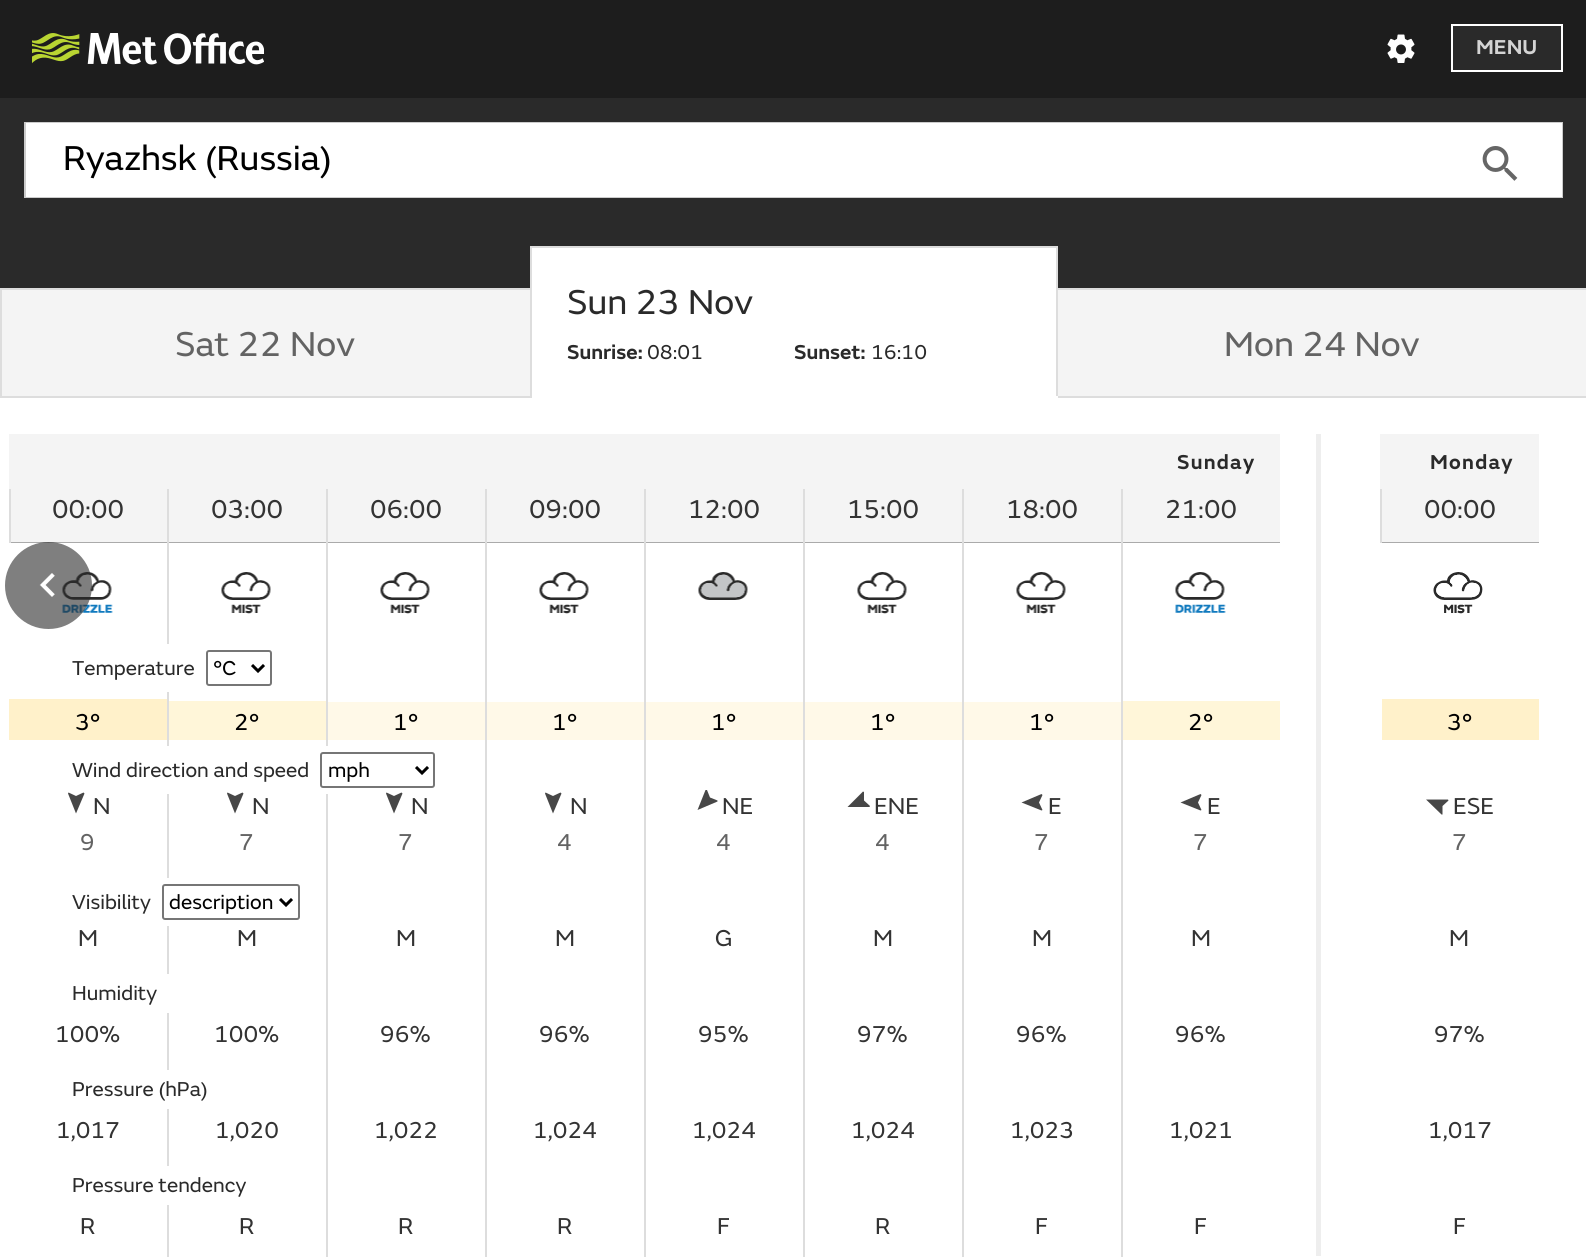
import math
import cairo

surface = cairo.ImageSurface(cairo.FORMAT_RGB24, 1586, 1257)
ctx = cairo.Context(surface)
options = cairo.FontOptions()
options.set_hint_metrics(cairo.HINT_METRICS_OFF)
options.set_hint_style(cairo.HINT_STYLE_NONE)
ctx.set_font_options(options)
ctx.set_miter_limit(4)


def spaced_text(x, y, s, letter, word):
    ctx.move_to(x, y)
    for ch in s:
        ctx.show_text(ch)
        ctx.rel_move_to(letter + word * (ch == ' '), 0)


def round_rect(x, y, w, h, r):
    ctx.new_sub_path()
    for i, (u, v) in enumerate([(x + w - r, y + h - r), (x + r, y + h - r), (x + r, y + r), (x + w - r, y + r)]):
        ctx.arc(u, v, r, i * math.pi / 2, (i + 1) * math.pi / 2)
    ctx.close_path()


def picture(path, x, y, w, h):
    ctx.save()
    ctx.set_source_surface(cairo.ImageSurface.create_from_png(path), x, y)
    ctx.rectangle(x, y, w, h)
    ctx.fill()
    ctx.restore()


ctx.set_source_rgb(1, 1, 1)
ctx.paint()
ctx.set_source_rgb(0.114, 0.114, 0.114)
ctx.rectangle(0, 0, 1586, 98)
ctx.fill()
picture("img1.png", 32, 33, 232, 32)
picture("img2.png", 1387, 34, 28, 29)
ctx.set_source_rgb(0.165, 0.165, 0.165)
ctx.rectangle(1452, 25, 110, 46)
ctx.fill_preserve()
ctx.set_source_rgb(1, 1, 1)
ctx.stroke()
ctx.select_font_face("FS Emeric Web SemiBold")
ctx.set_font_size(21)
ctx.set_source_rgb(0.831, 0.831, 0.831)
ctx.move_to(1476, 54)
ctx.show_text("MENU")
ctx.set_source_rgb(0.165, 0.165, 0.165)
ctx.rectangle(0, 98, 1586, 190)
ctx.fill()
ctx.rectangle(25, 123, 1537, 74)
ctx.set_source_rgb(0.8, 0.8, 0.8)
ctx.stroke()
ctx.set_source_rgb(1, 1, 1)
ctx.rectangle(26, 123, 1536, 74)
ctx.fill()
ctx.select_font_face("FS Emeric Web")
ctx.set_font_size(36)
ctx.set_source_rgb(0, 0, 0)
ctx.move_to(63, 170)
ctx.show_text("Ryazhsk (Russia)")
picture("img3.png", 1482, 146, 36, 35)
ctx.set_source_rgb(0.867, 0.867, 0.867)
ctx.rectangle(0, 288, 530, 2)
ctx.fill()
ctx.set_source_rgb(0.957, 0.957, 0.957)
ctx.rectangle(2, 290, 528, 106)
ctx.fill()
ctx.set_source_rgb(0.867, 0.867, 0.867)
ctx.rectangle(0, 396, 530, 2)
ctx.fill()
ctx.rectangle(0, 290, 2, 108)
ctx.fill()
ctx.set_source_rgb(0.388, 0.388, 0.388)
ctx.move_to(175, 356)
ctx.show_text("Sat 22 Nov")
ctx.set_source_rgb(0.867, 0.867, 0.867)
ctx.rectangle(530, 246, 528, 2)
ctx.fill()
ctx.set_source_rgb(1, 1, 1)
ctx.rectangle(532, 248, 524, 40)
ctx.fill()
ctx.set_source_rgb(0.867, 0.867, 0.867)
ctx.rectangle(1056, 248, 2, 150)
ctx.fill()
ctx.set_source_rgb(1, 1, 1)
ctx.rectangle(1056, 396, 2, 2)
ctx.fill()
ctx.set_source_rgb(0.867, 0.867, 0.867)
ctx.rectangle(530, 248, 2, 150)
ctx.fill()
ctx.set_source_rgb(0.165, 0.165, 0.165)
ctx.move_to(567, 314)
ctx.show_text("Sun 23 Nov")
ctx.select_font_face("FS Emeric Web SemiBold")
ctx.set_font_size(21)
ctx.move_to(567, 359)
ctx.show_text("Sunrise:")
ctx.select_font_face("FS Emeric Web")
ctx.move_to(647, 359)
ctx.show_text("08:01")
ctx.select_font_face("FS Emeric Web SemiBold")
ctx.move_to(794, 359)
ctx.show_text("Sunset:")
ctx.select_font_face("FS Emeric Web")
ctx.move_to(871, 359)
ctx.show_text("16:10")
ctx.set_source_rgb(0.867, 0.867, 0.867)
ctx.rectangle(1058, 288, 528, 2)
ctx.fill()
ctx.set_source_rgb(0.957, 0.957, 0.957)
ctx.rectangle(1058, 290, 528, 106)
ctx.fill()
ctx.set_source_rgb(0.867, 0.867, 0.867)
ctx.rectangle(1058, 396, 528, 2)
ctx.fill()
ctx.set_font_size(36)
ctx.set_source_rgb(0.388, 0.388, 0.388)
ctx.move_to(1224, 356)
ctx.show_text("Mon 24 Nov")
ctx.set_source_rgb(0.667, 0.667, 0.667)
ctx.rectangle(9, 542, 1271, 1)
ctx.fill()
ctx.set_source_rgb(0.867, 0.867, 0.867)
ctx.rectangle(9, 489, 2, 54)
ctx.fill()
picture("img5.png", 62, 572, 51, 41)
ctx.set_source_rgba(0.165, 0.165, 0.165, 0.6)
ctx.arc(48.5, 585.5, 43.5, 0, 2 * math.pi)
ctx.fill()
picture("img4.png", 39, 573, 16, 24)
ctx.set_source_rgb(0.933, 0.933, 0.933)
ctx.rectangle(1316, 434, 5, 822)
ctx.fill()
ctx.set_source_rgb(0.957, 0.957, 0.957)
ctx.rectangle(9, 434, 1271, 55)
ctx.fill()
ctx.select_font_face("FS Emeric Web SemiBold")
ctx.set_font_size(21)
ctx.set_source_rgb(0.165, 0.165, 0.165)
spaced_text(1177, 469, "Sunday", 1.25, 0)
ctx.set_source_rgb(0.957, 0.957, 0.957)
ctx.rectangle(11, 489, 156, 53)
ctx.fill()
ctx.select_font_face("FS Emeric Web")
ctx.set_font_size(27)
ctx.set_source_rgb(0.2, 0.2, 0.2)
ctx.move_to(52, 518)
ctx.show_text("00:00")
ctx.set_source_rgb(0.957, 0.957, 0.957)
ctx.rectangle(169, 489, 157, 53)
ctx.fill()
ctx.set_source_rgb(0.2, 0.2, 0.2)
ctx.move_to(211, 518)
ctx.show_text("03:00")
ctx.set_source_rgb(0.957, 0.957, 0.957)
ctx.rectangle(328, 489, 157, 53)
ctx.fill()
ctx.set_source_rgb(0.2, 0.2, 0.2)
ctx.move_to(370, 518)
ctx.show_text("06:00")
ctx.set_source_rgb(0.957, 0.957, 0.957)
ctx.rectangle(487, 489, 157, 53)
ctx.fill()
ctx.set_source_rgb(0.2, 0.2, 0.2)
ctx.move_to(529, 518)
ctx.show_text("09:00")
ctx.set_source_rgb(0.957, 0.957, 0.957)
ctx.rectangle(646, 489, 157, 53)
ctx.fill()
ctx.set_source_rgb(0.2, 0.2, 0.2)
ctx.move_to(688, 518)
ctx.show_text("12:00")
ctx.set_source_rgb(0.957, 0.957, 0.957)
ctx.rectangle(805, 489, 157, 53)
ctx.fill()
ctx.set_source_rgb(0.2, 0.2, 0.2)
ctx.move_to(847, 518)
ctx.show_text("15:00")
ctx.set_source_rgb(0.957, 0.957, 0.957)
ctx.rectangle(964, 489, 157, 53)
ctx.fill()
ctx.set_source_rgb(0.2, 0.2, 0.2)
ctx.move_to(1006, 518)
ctx.show_text("18:00")
ctx.set_source_rgb(0.957, 0.957, 0.957)
ctx.rectangle(1123, 489, 157, 53)
ctx.fill()
ctx.set_source_rgb(0.2, 0.2, 0.2)
ctx.move_to(1165, 518)
ctx.show_text("21:00")
picture("img6.png", 221, 572, 50, 42)
picture("img6.png", 380, 572, 50, 42)
picture("img6.png", 539, 572, 50, 42)
picture("img7.png", 698, 572, 50, 28)
picture("img6.png", 857, 572, 50, 42)
picture("img6.png", 1016, 572, 50, 42)
picture("img5.png", 1175, 572, 51, 41)
ctx.set_source_rgb(1, 0.945, 0.792)
ctx.rectangle(9, 699, 158, 41)
ctx.fill()
ctx.set_font_size(24)
ctx.set_source_rgb(0, 0, 0)
ctx.move_to(75, 730)
ctx.show_text("3°")
ctx.set_source_rgb(1, 0.961, 0.851)
ctx.rectangle(169, 701, 157, 39)
ctx.fill()
ctx.set_source_rgb(0, 0, 0)
ctx.move_to(234, 730)
ctx.show_text("2°")
ctx.set_source_rgb(1, 0.976, 0.91)
ctx.rectangle(328, 702, 157, 38)
ctx.fill()
ctx.set_source_rgb(0, 0, 0)
ctx.move_to(393, 730)
ctx.show_text("1°")
ctx.set_source_rgb(1, 0.976, 0.91)
ctx.rectangle(487, 702, 157, 38)
ctx.fill()
ctx.set_source_rgb(0, 0, 0)
ctx.move_to(552, 730)
ctx.show_text("1°")
ctx.set_source_rgb(1, 0.976, 0.91)
ctx.rectangle(646, 702, 157, 38)
ctx.fill()
ctx.set_source_rgb(0, 0, 0)
ctx.move_to(711, 730)
ctx.show_text("1°")
ctx.set_source_rgb(1, 0.976, 0.91)
ctx.rectangle(805, 702, 157, 38)
ctx.fill()
ctx.set_source_rgb(0, 0, 0)
ctx.move_to(870, 730)
ctx.show_text("1°")
ctx.set_source_rgb(1, 0.976, 0.91)
ctx.rectangle(964, 702, 157, 38)
ctx.fill()
ctx.set_source_rgb(0, 0, 0)
ctx.move_to(1029, 730)
ctx.show_text("1°")
ctx.set_source_rgb(1, 0.961, 0.851)
ctx.rectangle(1123, 701, 157, 39)
ctx.fill()
ctx.set_source_rgb(0, 0, 0)
ctx.move_to(1188, 730)
ctx.show_text("2°")
ctx.set_source_rgb(0.278, 0.278, 0.278)
ctx.new_path()
ctx.move_to(76, 813.5)
ctx.line_to(84.5, 793.5)
ctx.line_to(83.5, 792.5)
ctx.line_to(76, 796)
ctx.line_to(68.5, 792.5)
ctx.line_to(68, 793.5)
ctx.close_path()
ctx.fill()
ctx.set_source_rgb(0.2, 0.2, 0.2)
ctx.move_to(93, 814)
ctx.show_text("N")
ctx.set_source_rgb(0.388, 0.388, 0.388)
ctx.move_to(80, 850)
ctx.show_text("9")
ctx.set_source_rgb(0.867, 0.867, 0.867)
ctx.rectangle(167, 489, 2, 768)
ctx.fill()
ctx.rectangle(326, 489, 2, 768)
ctx.fill()
ctx.set_source_rgb(1, 1, 1)
ctx.rectangle(167, 746, 161, 48)
ctx.fill()
ctx.set_source_rgb(0.278, 0.278, 0.278)
ctx.new_path()
ctx.move_to(235, 813.5)
ctx.line_to(243.5, 793.5)
ctx.line_to(242.5, 792.5)
ctx.line_to(235, 796)
ctx.line_to(227.5, 792.5)
ctx.line_to(227, 793.5)
ctx.close_path()
ctx.fill()
ctx.set_source_rgb(0.2, 0.2, 0.2)
ctx.move_to(252, 814)
ctx.show_text("N")
ctx.set_source_rgb(0.388, 0.388, 0.388)
ctx.move_to(239, 850)
ctx.show_text("7")
ctx.set_source_rgb(0.278, 0.278, 0.278)
ctx.new_path()
ctx.move_to(394, 813.5)
ctx.line_to(402.5, 793.5)
ctx.line_to(401.5, 792.5)
ctx.line_to(394, 796)
ctx.line_to(386.5, 792.5)
ctx.line_to(386, 793.5)
ctx.close_path()
ctx.fill()
ctx.set_source_rgb(0.2, 0.2, 0.2)
ctx.move_to(411, 814)
ctx.show_text("N")
ctx.set_source_rgb(0.388, 0.388, 0.388)
ctx.move_to(398, 850)
ctx.show_text("7")
ctx.set_source_rgb(0.278, 0.278, 0.278)
ctx.new_path()
ctx.move_to(553, 813.5)
ctx.line_to(561.5, 793.5)
ctx.line_to(560.5, 792.5)
ctx.line_to(553, 796)
ctx.line_to(545.5, 792.5)
ctx.line_to(545, 793.5)
ctx.close_path()
ctx.fill()
ctx.set_source_rgb(0.2, 0.2, 0.2)
ctx.move_to(570, 814)
ctx.show_text("N")
ctx.set_source_rgb(0.388, 0.388, 0.388)
ctx.move_to(557, 850)
ctx.show_text("4")
ctx.set_source_rgb(0.278, 0.278, 0.278)
ctx.new_path()
ctx.move_to(697.5, 810)
ctx.line_to(717.5, 801.5)
ctx.line_to(717.5, 800.5)
ctx.line_to(710, 797.5)
ctx.line_to(707, 790)
ctx.line_to(705.5, 790)
ctx.close_path()
ctx.fill()
ctx.set_source_rgb(0.2, 0.2, 0.2)
ctx.move_to(722, 814)
ctx.show_text("NE")
ctx.set_source_rgb(0.388, 0.388, 0.388)
ctx.move_to(716, 850)
ctx.show_text("4")
ctx.set_source_rgb(0.278, 0.278, 0.278)
ctx.new_path()
ctx.move_to(847.5, 807)
ctx.line_to(869.5, 807)
ctx.line_to(870, 806)
ctx.line_to(864, 800.5)
ctx.line_to(864, 792)
ctx.line_to(863, 791.5)
ctx.close_path()
ctx.fill()
ctx.set_source_rgb(0.2, 0.2, 0.2)
ctx.move_to(874, 814)
ctx.show_text("ENE")
ctx.set_source_rgb(0.388, 0.388, 0.388)
ctx.move_to(875, 850)
ctx.show_text("4")
ctx.set_source_rgb(0.278, 0.278, 0.278)
ctx.new_path()
ctx.move_to(1021.5, 802.5)
ctx.line_to(1041.5, 810.5)
ctx.line_to(1042.5, 810)
ctx.line_to(1039, 802.5)
ctx.line_to(1042.5, 795)
ctx.line_to(1041.5, 794)
ctx.close_path()
ctx.fill()
ctx.set_source_rgb(0.2, 0.2, 0.2)
ctx.move_to(1048, 814)
ctx.show_text("E")
ctx.set_source_rgb(0.388, 0.388, 0.388)
ctx.move_to(1034, 850)
ctx.show_text("7")
ctx.set_source_rgb(0.278, 0.278, 0.278)
ctx.new_path()
ctx.move_to(1180.5, 802.5)
ctx.line_to(1200.5, 810.5)
ctx.line_to(1201.5, 810)
ctx.line_to(1198, 802.5)
ctx.line_to(1201.5, 795)
ctx.line_to(1200.5, 794)
ctx.close_path()
ctx.fill()
ctx.set_source_rgb(0.2, 0.2, 0.2)
ctx.move_to(1207, 814)
ctx.show_text("E")
ctx.set_source_rgb(0.388, 0.388, 0.388)
ctx.move_to(1193, 850)
ctx.show_text("7")
ctx.set_source_rgb(0.2, 0.2, 0.2)
ctx.move_to(78, 946)
ctx.show_text("M")
ctx.move_to(237, 946)
ctx.show_text("M")
ctx.move_to(396, 946)
ctx.show_text("M")
ctx.move_to(555, 946)
ctx.show_text("M")
ctx.move_to(715, 946)
ctx.show_text("G")
ctx.move_to(873, 946)
ctx.show_text("M")
ctx.move_to(1032, 946)
ctx.show_text("M")
ctx.move_to(1191, 946)
ctx.show_text("M")
ctx.move_to(55, 1042)
ctx.show_text("100%")
ctx.move_to(214, 1042)
ctx.show_text("100%")
ctx.move_to(380, 1042)
ctx.show_text("96%")
ctx.move_to(539, 1042)
ctx.show_text("96%")
ctx.move_to(698, 1042)
ctx.show_text("95%")
ctx.move_to(857, 1042)
ctx.show_text("97%")
ctx.move_to(1016, 1042)
ctx.show_text("96%")
ctx.move_to(1175, 1042)
ctx.show_text("96%")
ctx.move_to(56, 1138)
ctx.show_text("1,017")
ctx.move_to(215, 1138)
ctx.show_text("1,020")
ctx.move_to(374, 1138)
ctx.show_text("1,022")
ctx.move_to(533, 1138)
ctx.show_text("1,024")
ctx.move_to(692, 1138)
ctx.show_text("1,024")
ctx.move_to(851, 1138)
ctx.show_text("1,024")
ctx.move_to(1010, 1138)
ctx.show_text("1,023")
ctx.move_to(1169, 1138)
ctx.show_text("1,021")
ctx.move_to(80, 1234)
ctx.show_text("R")
ctx.move_to(239, 1234)
ctx.show_text("R")
ctx.set_source_rgb(0.867, 0.867, 0.867)
ctx.rectangle(485, 489, 2, 768)
ctx.fill()
ctx.set_source_rgb(0.2, 0.2, 0.2)
ctx.move_to(398, 1234)
ctx.show_text("R")
ctx.set_source_rgb(0.867, 0.867, 0.867)
ctx.rectangle(644, 489, 2, 768)
ctx.fill()
ctx.set_source_rgb(0.2, 0.2, 0.2)
ctx.move_to(557, 1234)
ctx.show_text("R")
ctx.set_source_rgb(0.867, 0.867, 0.867)
ctx.rectangle(803, 489, 2, 768)
ctx.fill()
ctx.set_source_rgb(0.2, 0.2, 0.2)
ctx.move_to(717, 1234)
ctx.show_text("F")
ctx.set_source_rgb(0.867, 0.867, 0.867)
ctx.rectangle(962, 489, 2, 768)
ctx.fill()
ctx.set_source_rgb(0.2, 0.2, 0.2)
ctx.move_to(875, 1234)
ctx.show_text("R")
ctx.set_source_rgb(0.867, 0.867, 0.867)
ctx.rectangle(1121, 489, 2, 768)
ctx.fill()
ctx.set_source_rgb(0.2, 0.2, 0.2)
ctx.move_to(1035, 1234)
ctx.show_text("F")
ctx.move_to(1194, 1234)
ctx.show_text("F")
ctx.set_source_rgb(0.957, 0.957, 0.957)
ctx.rectangle(1380, 434, 159, 55)
ctx.fill()
ctx.select_font_face("FS Emeric Web SemiBold")
ctx.set_font_size(21)
ctx.set_source_rgb(0.165, 0.165, 0.165)
spaced_text(1430, 469, "Monday", 1.25, 0)
ctx.set_source_rgb(0.867, 0.867, 0.867)
ctx.rectangle(1380, 489, 2, 54)
ctx.fill()
ctx.set_source_rgb(0.957, 0.957, 0.957)
ctx.rectangle(1382, 489, 157, 53)
ctx.fill()
ctx.select_font_face("FS Emeric Web")
ctx.set_font_size(27)
ctx.set_source_rgb(0.2, 0.2, 0.2)
ctx.move_to(1424, 518)
ctx.show_text("00:00")
ctx.set_source_rgb(0.667, 0.667, 0.667)
ctx.rectangle(1382, 542, 157, 1)
ctx.fill()
picture("img8.png", 1433, 572, 50, 42)
ctx.set_source_rgb(1, 0.945, 0.792)
ctx.rectangle(1382, 699, 157, 41)
ctx.fill()
ctx.set_font_size(24)
ctx.set_source_rgb(0, 0, 0)
ctx.move_to(1447, 730)
ctx.show_text("3°")
ctx.set_source_rgb(0.278, 0.278, 0.278)
ctx.new_path()
ctx.move_to(1426, 799.5)
ctx.line_to(1441.5, 814.5)
ctx.line_to(1442.5, 814.5)
ctx.line_to(1442.5, 806)
ctx.line_to(1448.5, 800.5)
ctx.line_to(1448, 799.5)
ctx.close_path()
ctx.fill()
ctx.set_source_rgb(0.2, 0.2, 0.2)
ctx.move_to(1453, 814)
ctx.show_text("ESE")
ctx.set_source_rgb(0.388, 0.388, 0.388)
ctx.move_to(1452, 850)
ctx.show_text("7")
ctx.set_source_rgb(0.2, 0.2, 0.2)
ctx.move_to(1449, 946)
ctx.show_text("M")
ctx.move_to(1434, 1042)
ctx.show_text("97%")
ctx.move_to(1428, 1138)
ctx.show_text("1,017")
ctx.move_to(1453, 1234)
ctx.show_text("F")
ctx.set_source_rgb(1, 1, 1)
ctx.rectangle(167, 644, 2, 48)
ctx.fill()
ctx.set_font_size(21)
ctx.set_source_rgb(0.165, 0.165, 0.165)
ctx.move_to(72, 675)
ctx.show_text("Temperature")
round_rect(207, 651, 64, 34, 2)
ctx.set_source_rgb(0.463, 0.463, 0.463)
ctx.stroke()
ctx.new_path()
ctx.move_to(252, 665)
ctx.line_to(258, 671)
ctx.line_to(264, 665)
ctx.set_source_rgb(0, 0, 0)
ctx.set_line_width(3)
ctx.stroke()
ctx.move_to(213, 675)
ctx.show_text("°C")
ctx.set_source_rgb(0.165, 0.165, 0.165)
ctx.move_to(72, 777)
ctx.show_text("Wind direction and speed")
round_rect(321, 753, 113, 34, 2)
ctx.set_source_rgb(0.463, 0.463, 0.463)
ctx.set_line_width(2)
ctx.stroke()
ctx.new_path()
ctx.move_to(416, 767)
ctx.line_to(422, 773)
ctx.line_to(428, 767)
ctx.set_source_rgb(0, 0, 0)
ctx.set_line_width(3)
ctx.stroke()
ctx.move_to(328, 777)
ctx.show_text("mph")
ctx.set_source_rgb(1, 1, 1)
ctx.rectangle(167, 878, 2, 48)
ctx.fill()
ctx.set_source_rgb(0.165, 0.165, 0.165)
ctx.move_to(72, 909)
ctx.show_text("Visibility")
round_rect(163, 885, 136, 34, 2)
ctx.set_source_rgb(0.463, 0.463, 0.463)
ctx.set_line_width(2)
ctx.stroke()
ctx.new_path()
ctx.move_to(280, 899)
ctx.line_to(286, 905)
ctx.line_to(292, 899)
ctx.set_source_rgb(0, 0, 0)
ctx.set_line_width(3)
ctx.stroke()
ctx.move_to(169, 909)
ctx.show_text("description")
ctx.set_source_rgb(1, 1, 1)
ctx.rectangle(167, 974, 2, 39)
ctx.fill()
ctx.set_source_rgb(0.165, 0.165, 0.165)
ctx.move_to(72, 1000)
ctx.show_text("Humidity")
ctx.set_source_rgb(1, 1, 1)
ctx.rectangle(167, 1070, 2, 39)
ctx.fill()
ctx.set_source_rgb(0.165, 0.165, 0.165)
ctx.move_to(72, 1096)
ctx.show_text("Pressure (hPa)")
ctx.set_source_rgb(1, 1, 1)
ctx.rectangle(167, 1166, 2, 39)
ctx.fill()
ctx.set_source_rgb(0.165, 0.165, 0.165)
ctx.move_to(72, 1192)
ctx.show_text("Pressure tendency")
surface.write_to_png("page.png")
